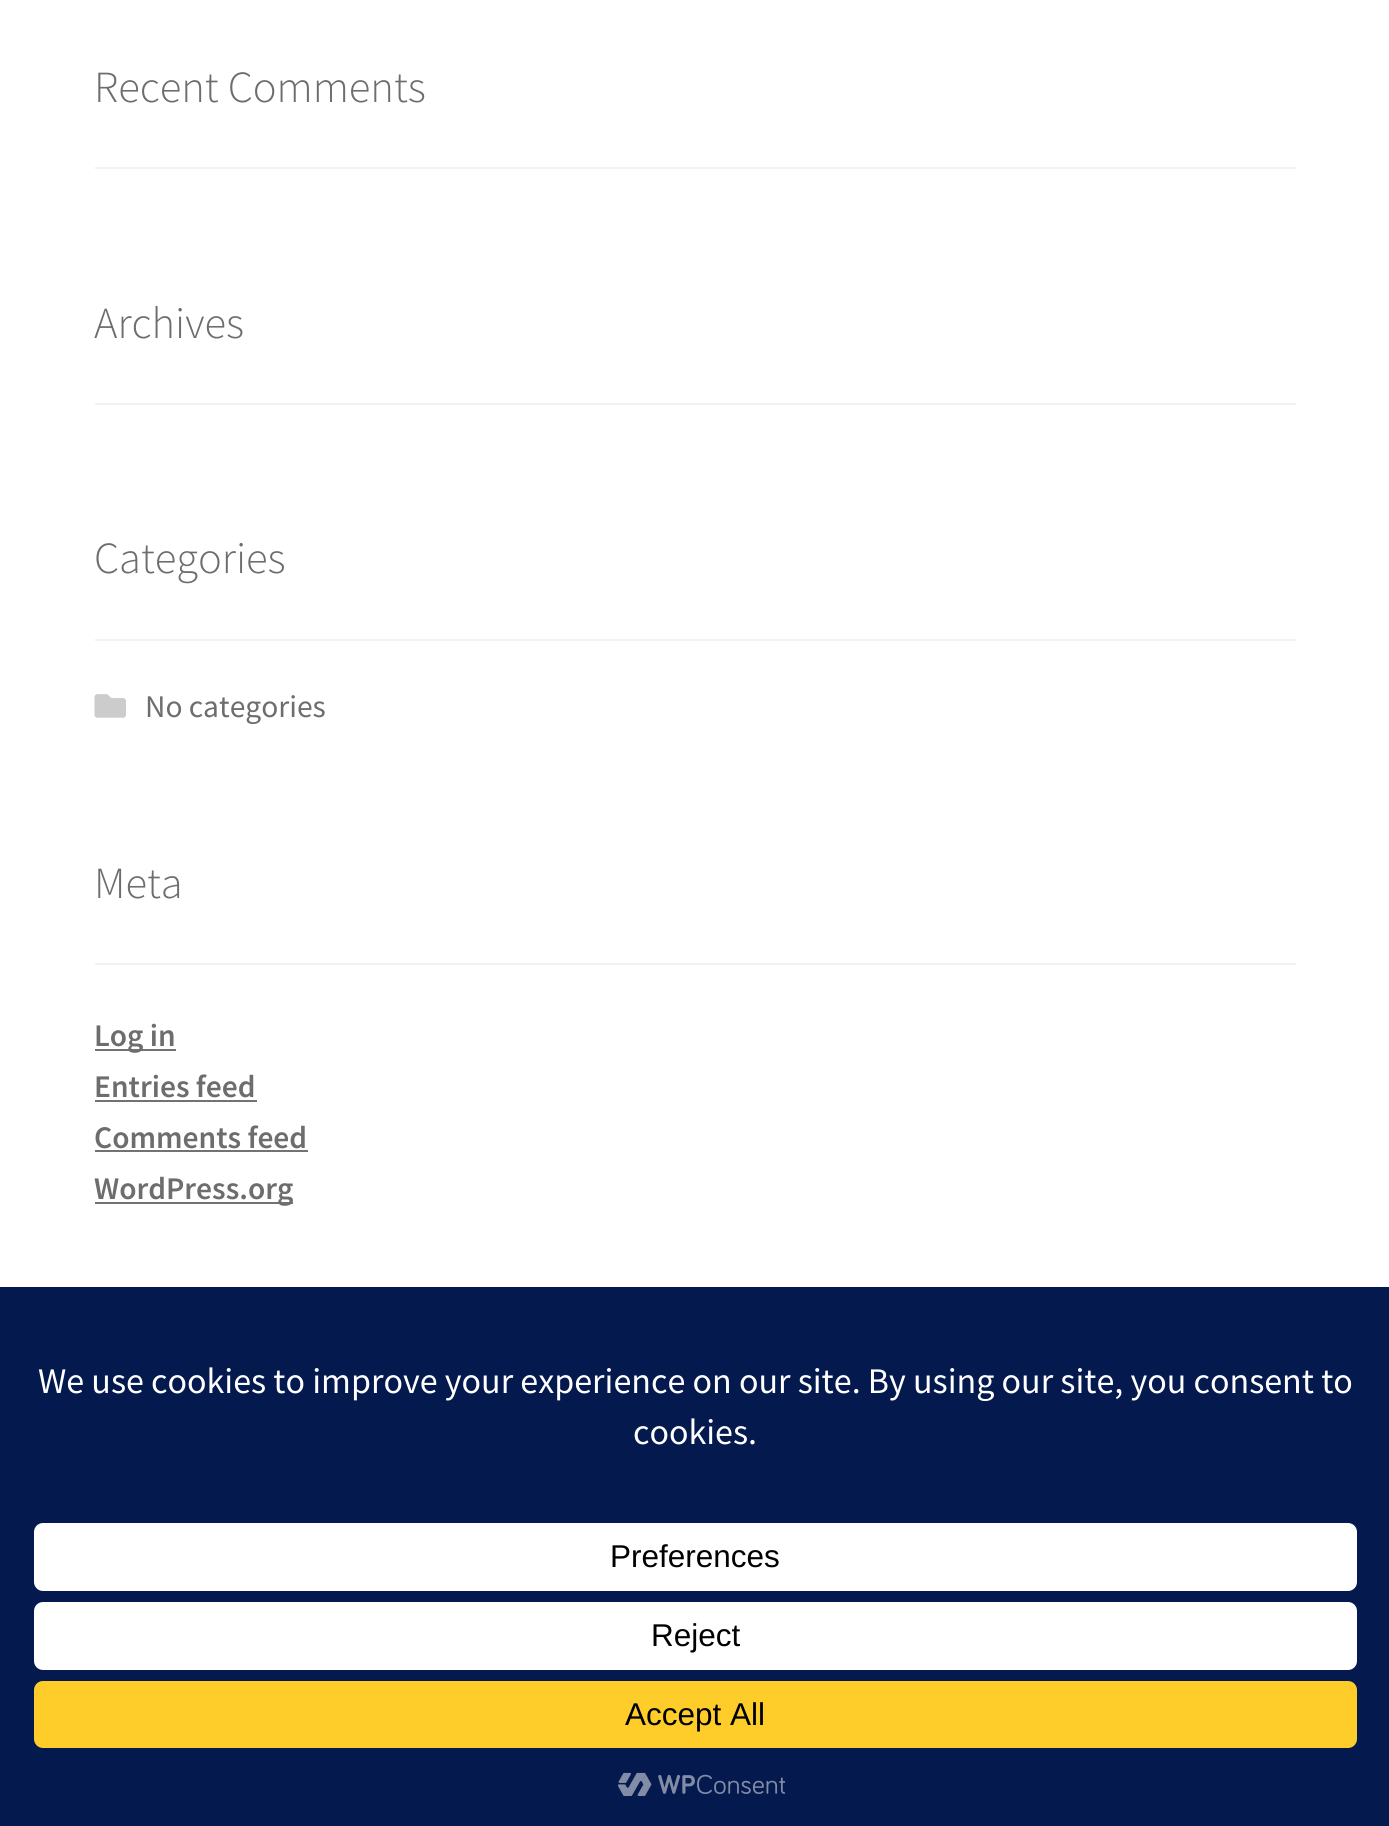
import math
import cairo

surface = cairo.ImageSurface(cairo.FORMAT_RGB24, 1389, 1826)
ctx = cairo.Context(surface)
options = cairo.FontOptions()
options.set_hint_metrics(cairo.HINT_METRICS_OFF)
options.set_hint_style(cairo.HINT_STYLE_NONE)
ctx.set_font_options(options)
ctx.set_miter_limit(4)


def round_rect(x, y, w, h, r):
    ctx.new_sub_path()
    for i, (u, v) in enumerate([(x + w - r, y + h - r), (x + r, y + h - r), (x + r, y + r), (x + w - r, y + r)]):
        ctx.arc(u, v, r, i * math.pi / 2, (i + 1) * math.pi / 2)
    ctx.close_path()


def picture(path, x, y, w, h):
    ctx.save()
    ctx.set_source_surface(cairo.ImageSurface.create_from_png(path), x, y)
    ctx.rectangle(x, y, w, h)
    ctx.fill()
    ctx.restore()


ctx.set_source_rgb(1, 1, 1)
ctx.paint()
ctx.set_source_rgb(0.949, 0.949, 0.949)
ctx.rectangle(95, 167, 1201, 2)
ctx.fill()
ctx.select_font_face("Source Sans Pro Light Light")
ctx.set_font_size(44.5)
ctx.set_source_rgb(0.427, 0.427, 0.427)
ctx.move_to(94, 102)
ctx.show_text("Recent Comments")
ctx.set_source_rgb(0.949, 0.949, 0.949)
ctx.rectangle(95, 403, 1201, 2)
ctx.fill()
ctx.set_source_rgb(0.427, 0.427, 0.427)
ctx.move_to(94, 338)
ctx.show_text("Archives")
ctx.set_source_rgb(0.949, 0.949, 0.949)
ctx.rectangle(95, 639, 1201, 2)
ctx.fill()
ctx.set_source_rgb(0.427, 0.427, 0.427)
ctx.move_to(94, 573)
ctx.show_text("Categories")
picture("img1.png", 94, 694, 32, 24)
ctx.select_font_face("Source Sans Pro")
ctx.set_font_size(31.5)
ctx.move_to(145, 717)
ctx.show_text("No categories")
ctx.set_source_rgb(0.949, 0.949, 0.949)
ctx.rectangle(95, 963, 1201, 2)
ctx.fill()
ctx.select_font_face("Source Sans Pro Light Light")
ctx.set_font_size(44.5)
ctx.set_source_rgb(0.427, 0.427, 0.427)
ctx.move_to(94, 898)
ctx.show_text("Meta")
ctx.set_source_rgb(0.447, 0.447, 0.447)
ctx.rectangle(95, 1049, 81, 2)
ctx.fill()
ctx.select_font_face("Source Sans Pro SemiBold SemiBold")
ctx.set_font_size(31.5)
ctx.set_source_rgb(0.427, 0.427, 0.427)
ctx.move_to(94, 1046)
ctx.show_text("Log in")
ctx.move_to(94, 1097)
ctx.show_text("Entries feed")
ctx.set_source_rgb(0.447, 0.447, 0.447)
ctx.rectangle(95, 1100, 162, 2)
ctx.fill()
ctx.set_source_rgb(0.427, 0.427, 0.427)
ctx.move_to(94, 1148)
ctx.show_text("Comments feed")
ctx.set_source_rgb(0.447, 0.447, 0.447)
ctx.rectangle(95, 1150, 213, 2)
ctx.fill()
ctx.rectangle(95, 1202, 198, 2)
ctx.fill()
ctx.set_source_rgb(0.427, 0.427, 0.427)
ctx.move_to(94, 1199)
ctx.show_text("WordPress.org")
ctx.set_source_rgb(0.016, 0.098, 0.306)
ctx.rectangle(0, 1287, 1389, 539)
ctx.fill()
ctx.select_font_face("Source Sans Pro")
ctx.set_font_size(36)
ctx.set_source_rgb(1, 1, 1)
ctx.move_to(38, 1393)
ctx.show_text("We use cookies to improve your experience on our site. By using our site, you consent to")
ctx.move_to(633, 1444)
ctx.show_text("cookies.")
round_rect(34, 1523, 1323, 68, 9)
ctx.fill()
ctx.select_font_face("Liberation Sans")
ctx.set_font_size(31.5)
ctx.set_source_rgb(0, 0, 0)
ctx.move_to(610, 1567)
ctx.show_text("Preferences")
ctx.set_source_rgb(1, 1, 1)
round_rect(34, 1602, 1323, 68, 9)
ctx.fill()
ctx.set_source_rgb(0, 0, 0)
ctx.move_to(651, 1646)
ctx.show_text("Reject")
ctx.set_source_rgb(1, 0.804, 0.165)
round_rect(34, 1681, 1323, 67, 9)
ctx.fill()
ctx.set_source_rgb(0, 0, 0)
ctx.move_to(625, 1725)
ctx.show_text("Accept All")
picture("img2.png", 618, 1772, 168, 24)
surface.write_to_png("page.png")
